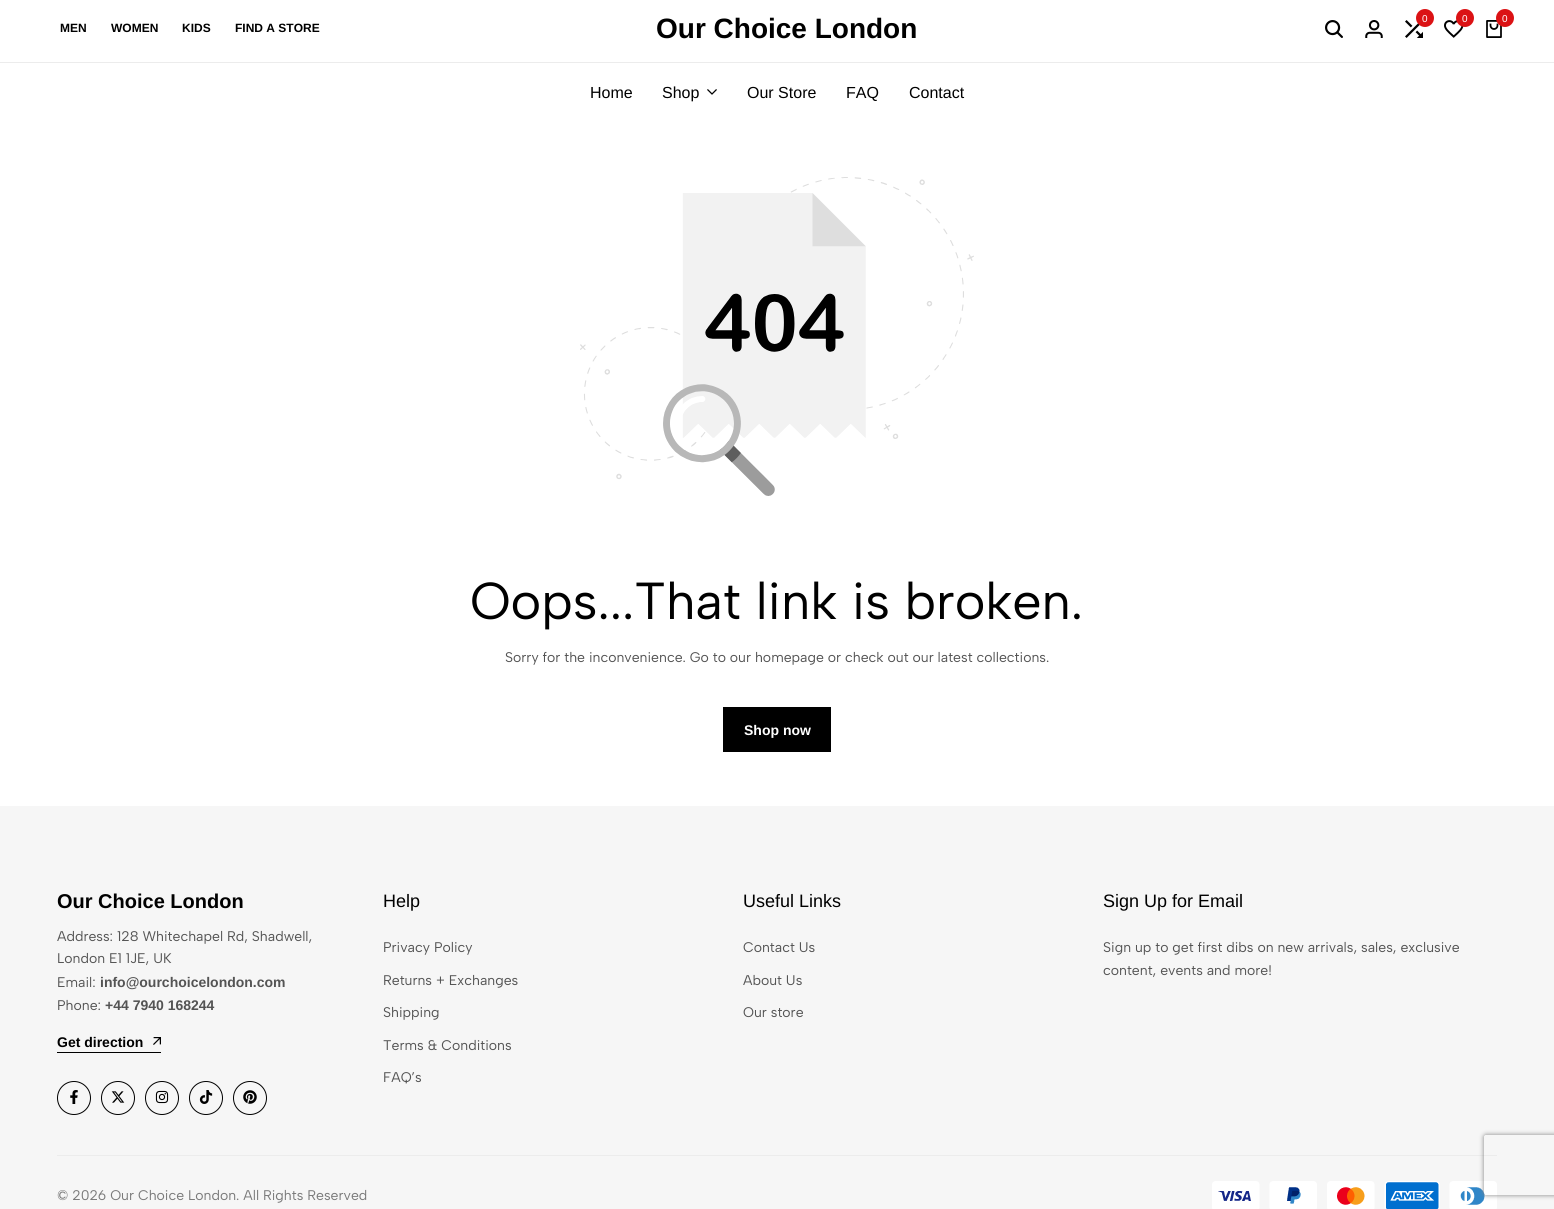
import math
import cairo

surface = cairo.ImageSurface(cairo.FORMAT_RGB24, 1554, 1209)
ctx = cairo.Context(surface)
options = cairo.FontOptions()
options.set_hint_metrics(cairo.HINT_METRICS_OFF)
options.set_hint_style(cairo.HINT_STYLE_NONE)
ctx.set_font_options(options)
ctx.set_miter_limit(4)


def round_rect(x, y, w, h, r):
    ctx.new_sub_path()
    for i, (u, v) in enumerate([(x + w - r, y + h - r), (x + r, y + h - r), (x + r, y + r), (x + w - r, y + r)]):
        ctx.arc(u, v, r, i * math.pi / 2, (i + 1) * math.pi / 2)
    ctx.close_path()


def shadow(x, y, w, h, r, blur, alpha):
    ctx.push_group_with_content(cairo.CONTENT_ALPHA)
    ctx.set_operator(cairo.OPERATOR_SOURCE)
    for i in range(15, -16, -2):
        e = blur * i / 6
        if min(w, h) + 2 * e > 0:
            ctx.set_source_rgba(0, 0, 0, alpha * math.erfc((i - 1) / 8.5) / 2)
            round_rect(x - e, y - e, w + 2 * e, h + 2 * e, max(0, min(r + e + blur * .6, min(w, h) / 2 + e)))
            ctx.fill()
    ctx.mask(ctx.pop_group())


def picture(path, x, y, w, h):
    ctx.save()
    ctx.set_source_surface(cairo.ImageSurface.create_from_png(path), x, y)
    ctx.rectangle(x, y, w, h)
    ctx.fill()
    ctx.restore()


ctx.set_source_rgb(1, 1, 1)
ctx.paint()
ctx.set_source_rgb(0.922, 0.922, 0.922)
ctx.rectangle(0, 62, 1554, 1)
ctx.fill()
ctx.select_font_face("Liberation Sans", cairo.FONT_SLANT_NORMAL, cairo.FONT_WEIGHT_BOLD)
ctx.set_font_size(12)
ctx.set_source_rgb(0, 0, 0)
ctx.move_to(60, 32)
ctx.show_text("MEN")
ctx.move_to(111, 32)
ctx.show_text("WOMEN")
ctx.move_to(182, 32)
ctx.show_text("KIDS")
ctx.move_to(235, 32)
ctx.show_text("FIND A STORE")
ctx.set_font_size(28)
ctx.move_to(656, 38)
ctx.show_text("Our Choice London")
picture("img1.png", 1405, 20, 18, 18)
ctx.set_source_rgb(0.859, 0.071, 0.082)
ctx.arc(1425, 18, 9, 0, 2 * math.pi)
ctx.fill()
ctx.select_font_face("Liberation Sans")
ctx.set_font_size(10)
ctx.set_source_rgb(1, 1, 1)
ctx.move_to(1422, 22)
ctx.show_text("0")
picture("img2.png", 1444, 20, 20, 18)
ctx.set_source_rgb(0.859, 0.071, 0.082)
ctx.arc(1465, 18, 9, 0, 2 * math.pi)
ctx.fill()
ctx.set_source_rgb(1, 1, 1)
ctx.move_to(1462, 22)
ctx.show_text("0")
picture("img3.png", 1486, 20, 16, 18)
ctx.set_source_rgb(0.859, 0.071, 0.082)
ctx.arc(1505, 18, 9, 0, 2 * math.pi)
ctx.fill()
ctx.set_source_rgb(1, 1, 1)
ctx.move_to(1502, 22)
ctx.show_text("0")
picture("img4.png", 1325, 20, 18, 18)
picture("img5.png", 1365, 20, 18, 18)
ctx.set_font_size(16)
ctx.set_source_rgb(0, 0, 0)
ctx.move_to(590, 98)
ctx.show_text("Home")
ctx.move_to(662, 98)
ctx.show_text("Shop")
picture("img6.png", 707, 89, 10, 6)
ctx.move_to(747, 98)
ctx.show_text("Our Store")
ctx.move_to(846, 98)
ctx.show_text("FAQ")
ctx.move_to(909, 98)
ctx.show_text("Contact")
picture("img7.png", 580, 177, 394, 319)
ctx.select_font_face("Albert Sans")
ctx.set_font_size(52)
ctx.move_to(470, 619)
ctx.show_text("Oops...That link is broken.")
ctx.set_font_size(14)
ctx.set_source_rgb(0.329, 0.329, 0.329)
ctx.move_to(505, 662)
ctx.show_text("Sorry for the inconvenience. Go to our homepage or check out our latest collections.")
ctx.set_source_rgb(0, 0, 0)
ctx.rectangle(723, 707, 108, 45)
ctx.fill()
ctx.select_font_face("Liberation Sans", cairo.FONT_SLANT_NORMAL, cairo.FONT_WEIGHT_BOLD)
ctx.set_source_rgb(1, 1, 1)
ctx.move_to(744, 735)
ctx.show_text("Shop now")
ctx.set_source_rgb(0.961, 0.961, 0.961)
ctx.rectangle(0, 806, 1554, 403)
ctx.fill()
ctx.set_font_size(20)
ctx.set_source_rgb(0, 0, 0)
ctx.move_to(57, 908)
ctx.show_text("Our Choice London")
ctx.select_font_face("Albert Sans")
ctx.set_font_size(14)
ctx.set_source_rgb(0.329, 0.329, 0.329)
ctx.move_to(57, 941)
ctx.show_text("Address: 128 Whitechapel Rd, Shadwell,")
ctx.move_to(57, 963)
ctx.show_text("London E1 1JE, UK")
ctx.move_to(57, 987)
ctx.show_text("Email:")
ctx.select_font_face("Liberation Sans", cairo.FONT_SLANT_NORMAL, cairo.FONT_WEIGHT_BOLD)
ctx.move_to(100, 987)
ctx.show_text("info@ourchoicelondon.com")
ctx.select_font_face("Albert Sans")
ctx.move_to(57, 1010)
ctx.show_text("Phone:")
ctx.select_font_face("Liberation Sans", cairo.FONT_SLANT_NORMAL, cairo.FONT_WEIGHT_BOLD)
ctx.move_to(105, 1010)
ctx.show_text("+44 7940 168244")
ctx.set_source_rgb(0, 0, 0)
ctx.rectangle(57, 1052, 104, 1)
ctx.fill()
ctx.move_to(57, 1047)
ctx.show_text("Get direction")
picture("img8.png", 153, 1037, 8, 8)
ctx.arc(74, 1098, 16.5, 0, 2 * math.pi)
ctx.set_line_width(1)
ctx.stroke()
picture("img9.png", 70, 1090, 8, 14)
ctx.arc(118, 1098, 16.5, 0, 2 * math.pi)
ctx.stroke()
picture("img10.png", 111, 1091, 14, 12)
ctx.arc(162, 1098, 16.5, 0, 2 * math.pi)
ctx.stroke()
picture("img11.png", 155, 1090, 14, 14)
ctx.arc(206, 1098, 16.5, 0, 2 * math.pi)
ctx.stroke()
picture("img12.png", 199, 1090, 14, 14)
ctx.arc(250, 1098, 16.5, 0, 2 * math.pi)
ctx.stroke()
picture("img13.png", 243, 1090, 14, 14)
ctx.select_font_face("Liberation Sans")
ctx.set_font_size(18)
ctx.move_to(383, 907)
ctx.show_text("Help")
ctx.select_font_face("Albert Sans")
ctx.set_font_size(14)
ctx.set_source_rgb(0.329, 0.329, 0.329)
ctx.move_to(383, 952)
ctx.show_text("Privacy Policy")
ctx.move_to(383, 985)
ctx.show_text("Returns + Exchanges")
ctx.move_to(383, 1017)
ctx.show_text("Shipping")
ctx.move_to(383, 1050)
ctx.show_text("Terms & Conditions")
ctx.move_to(383, 1082)
ctx.show_text("FAQ’s")
ctx.select_font_face("Liberation Sans")
ctx.set_font_size(18)
ctx.set_source_rgb(0, 0, 0)
ctx.move_to(743, 907)
ctx.show_text("Useful Links")
ctx.select_font_face("Albert Sans")
ctx.set_font_size(14)
ctx.set_source_rgb(0.329, 0.329, 0.329)
ctx.move_to(743, 952)
ctx.show_text("Contact Us")
ctx.move_to(743, 985)
ctx.show_text("About Us")
ctx.move_to(743, 1017)
ctx.show_text("Our store")
ctx.select_font_face("Liberation Sans")
ctx.set_font_size(18)
ctx.set_source_rgb(0, 0, 0)
ctx.move_to(1103, 907)
ctx.show_text("Sign Up for Email")
ctx.select_font_face("Albert Sans")
ctx.set_font_size(14)
ctx.set_source_rgb(0.329, 0.329, 0.329)
ctx.move_to(1103, 952)
ctx.show_text("Sign up to get first dibs on new arrivals, sales, exclusive")
ctx.move_to(1103, 975)
ctx.show_text("content, events and more!")
ctx.set_source_rgb(0.922, 0.922, 0.922)
ctx.rectangle(57, 1155, 1440, 1)
ctx.fill()
ctx.set_source_rgb(0.478, 0.478, 0.478)
ctx.move_to(57, 1200)
ctx.show_text("© 2026 Our Choice London. All Rights Reserved")
picture("img14.png", 1212, 1181, 285, 28)
ctx.save()
ctx.set_fill_rule(cairo.FILL_RULE_EVEN_ODD)
ctx.new_path()
ctx.move_to(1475, 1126)
ctx.line_to(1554, 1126)
ctx.line_to(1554, 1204)
ctx.line_to(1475, 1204)
ctx.close_path()
ctx.move_to(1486, 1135)
ctx.line_to(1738, 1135)
ctx.curve_to(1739, 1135, 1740, 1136, 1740, 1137)
ctx.line_to(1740, 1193)
ctx.curve_to(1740, 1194, 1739, 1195, 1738, 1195)
ctx.line_to(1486, 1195)
ctx.curve_to(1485, 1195, 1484, 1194, 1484, 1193)
ctx.line_to(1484, 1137)
ctx.curve_to(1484, 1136, 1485, 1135, 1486, 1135)
ctx.close_path()
ctx.clip()
ctx.set_source_rgb(0.502, 0.502, 0.502)
shadow(1484, 1135, 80, 60, 2, 2.5, 1)
ctx.restore()
surface.write_to_png("page.png")
